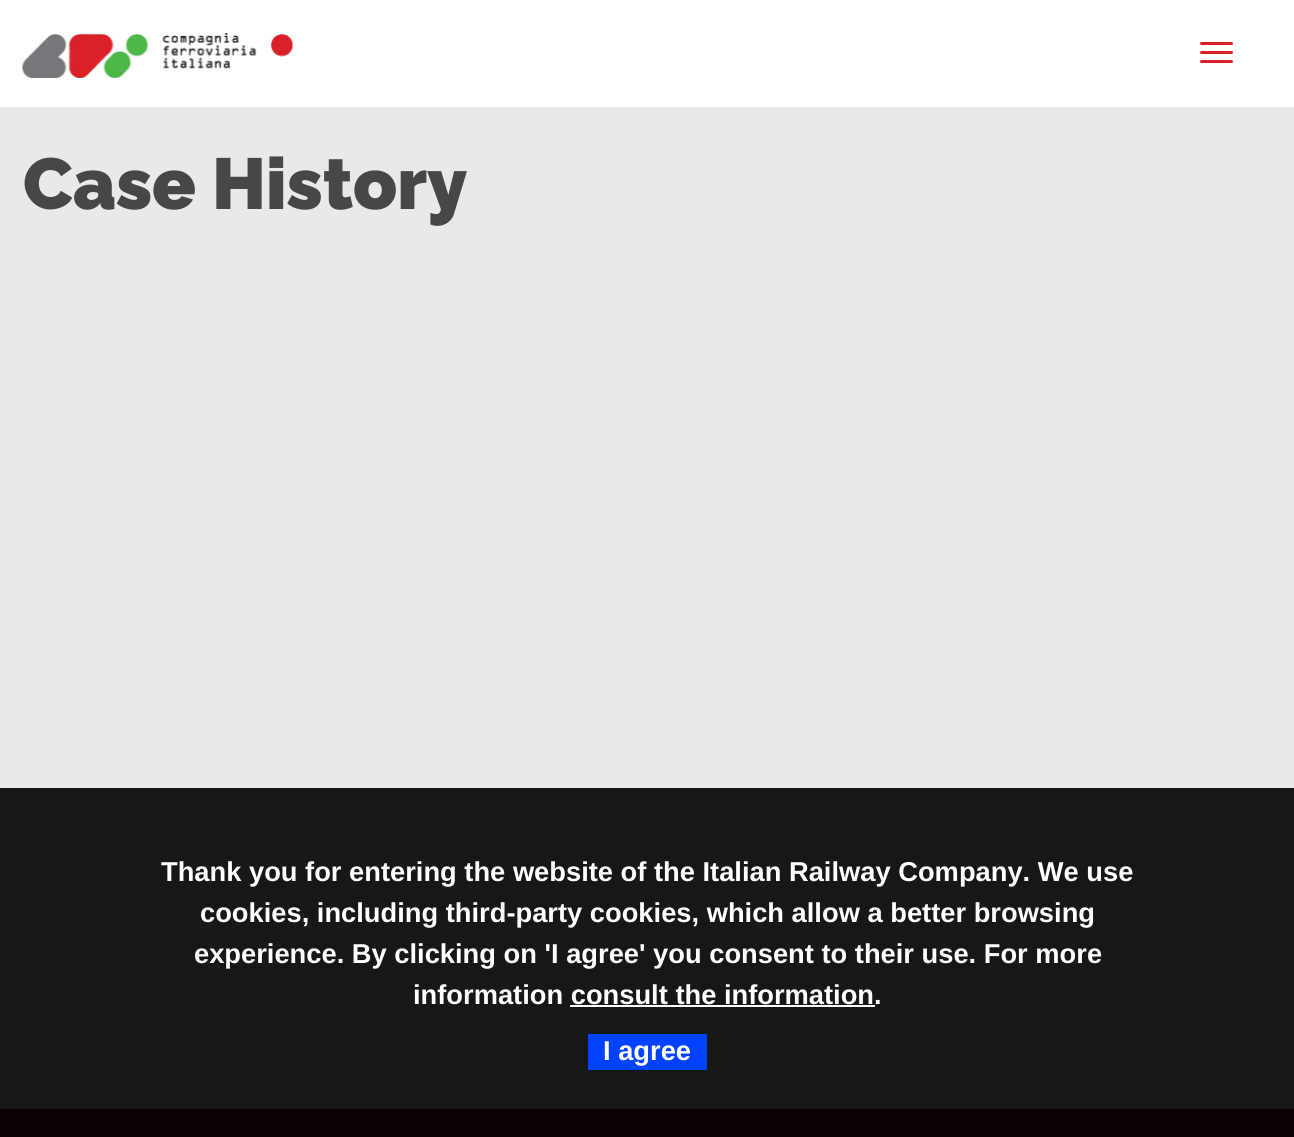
import math
import cairo

surface = cairo.ImageSurface(cairo.FORMAT_RGB24, 1294, 1137)
ctx = cairo.Context(surface)
options = cairo.FontOptions()
options.set_hint_metrics(cairo.HINT_METRICS_OFF)
options.set_hint_style(cairo.HINT_STYLE_NONE)
ctx.set_font_options(options)
ctx.set_miter_limit(4)


def round_rect(x, y, w, h, r):
    ctx.new_sub_path()
    for i, (u, v) in enumerate([(x + w - r, y + h - r), (x + r, y + h - r), (x + r, y + r), (x + w - r, y + r)]):
        ctx.arc(u, v, r, i * math.pi / 2, (i + 1) * math.pi / 2)
    ctx.close_path()


def picture(path, x, y, w, h):
    ctx.save()
    ctx.set_source_surface(cairo.ImageSurface.create_from_png(path), x, y)
    ctx.rectangle(x, y, w, h)
    ctx.fill()
    ctx.restore()


ctx.set_source_rgb(0.914, 0.914, 0.914)
ctx.paint()
ctx.set_source_rgb(0.09, 0.09, 0.09)
ctx.rectangle(0, 788, 1294, 321)
ctx.fill()
ctx.set_source_rgb(1, 1, 1)
ctx.rectangle(0, 0, 1294, 107)
ctx.fill()
picture("img1.png", 22, 33, 271, 45)
ctx.set_source_rgb(0.855, 0.129, 0.153)
round_rect(1200, 42, 33, 3, 1.5)
ctx.fill()
round_rect(1200, 51, 33, 3, 1.5)
ctx.fill()
round_rect(1200, 60, 33, 3, 1.5)
ctx.fill()
ctx.select_font_face("Raleway Thin")
ctx.set_font_size(72)
ctx.set_source_rgb(0.278, 0.278, 0.278)
ctx.move_to(23, 209)
ctx.show_text("Case History")
ctx.select_font_face("Liberation Sans", cairo.FONT_SLANT_NORMAL, cairo.FONT_WEIGHT_BOLD)
ctx.set_font_size(27.3)
ctx.set_source_rgb(1, 1, 1)
ctx.move_to(161, 881)
ctx.show_text("Thank you for entering the website of the Italian Railway Company. We use")
ctx.move_to(200, 922)
ctx.show_text("cookies, including third-party cookies, which allow a better browsing")
ctx.move_to(194, 963)
ctx.show_text("experience. By clicking on 'I agree' you consent to their use. For more")
ctx.move_to(413, 1004)
ctx.show_text("information consult the information.")
ctx.rectangle(570, 1005, 305, 2)
ctx.fill()
ctx.set_source_rgb(0, 0.259, 1)
ctx.rectangle(588, 1034, 119, 36)
ctx.fill()
ctx.set_source_rgb(1, 1, 1)
ctx.move_to(603, 1060)
ctx.show_text("I agree")
ctx.set_source_rgb(0.043, 0.004, 0.012)
ctx.rectangle(0, 1109, 1294, 28)
ctx.fill()
surface.write_to_png("page.png")
